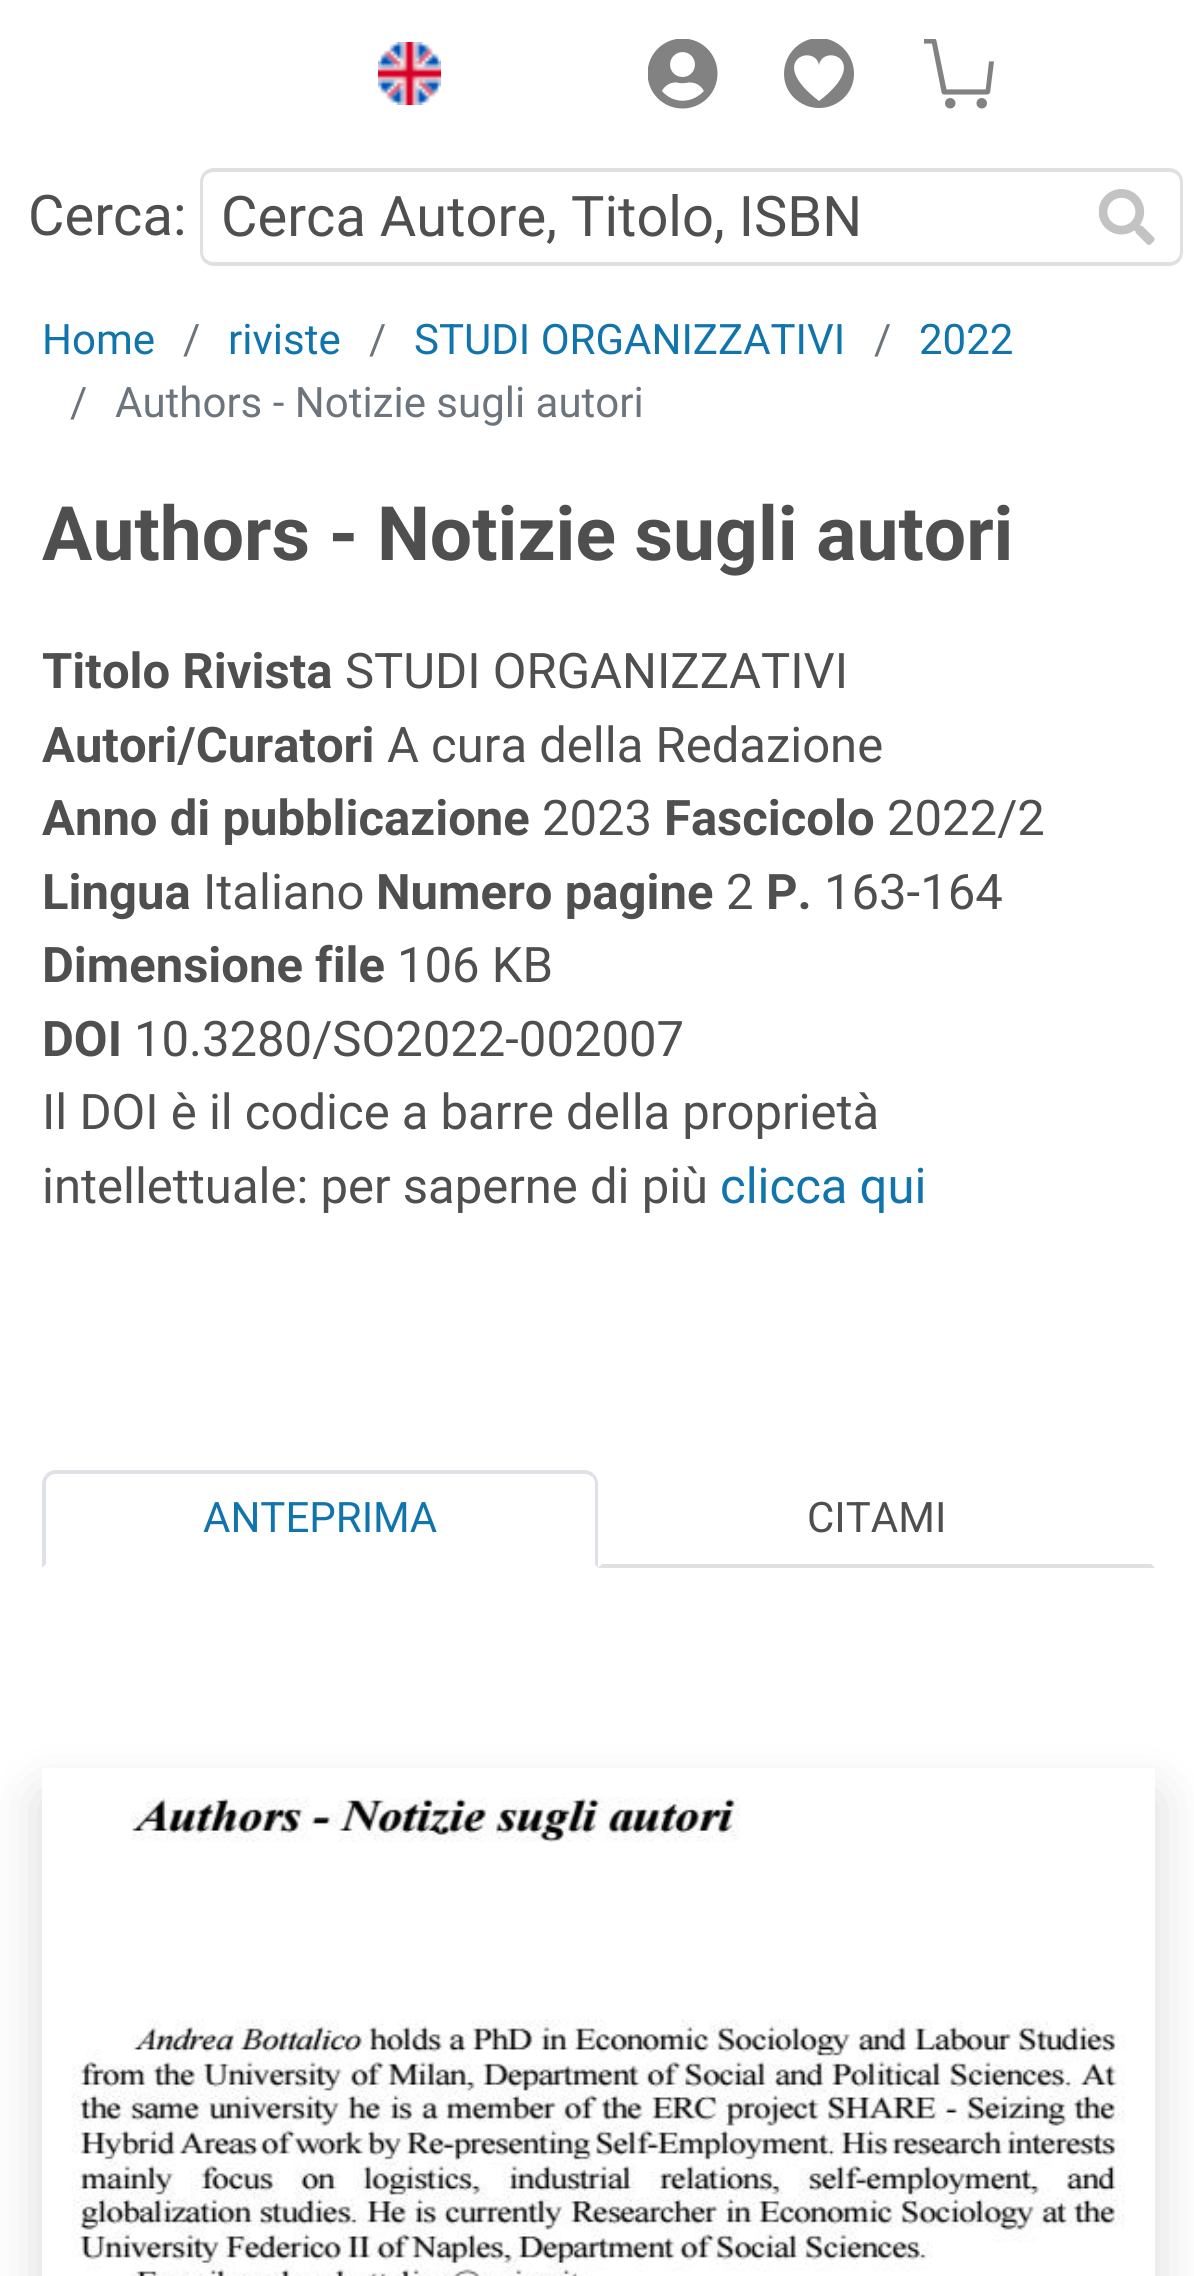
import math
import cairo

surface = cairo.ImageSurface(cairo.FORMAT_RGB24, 1194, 2276)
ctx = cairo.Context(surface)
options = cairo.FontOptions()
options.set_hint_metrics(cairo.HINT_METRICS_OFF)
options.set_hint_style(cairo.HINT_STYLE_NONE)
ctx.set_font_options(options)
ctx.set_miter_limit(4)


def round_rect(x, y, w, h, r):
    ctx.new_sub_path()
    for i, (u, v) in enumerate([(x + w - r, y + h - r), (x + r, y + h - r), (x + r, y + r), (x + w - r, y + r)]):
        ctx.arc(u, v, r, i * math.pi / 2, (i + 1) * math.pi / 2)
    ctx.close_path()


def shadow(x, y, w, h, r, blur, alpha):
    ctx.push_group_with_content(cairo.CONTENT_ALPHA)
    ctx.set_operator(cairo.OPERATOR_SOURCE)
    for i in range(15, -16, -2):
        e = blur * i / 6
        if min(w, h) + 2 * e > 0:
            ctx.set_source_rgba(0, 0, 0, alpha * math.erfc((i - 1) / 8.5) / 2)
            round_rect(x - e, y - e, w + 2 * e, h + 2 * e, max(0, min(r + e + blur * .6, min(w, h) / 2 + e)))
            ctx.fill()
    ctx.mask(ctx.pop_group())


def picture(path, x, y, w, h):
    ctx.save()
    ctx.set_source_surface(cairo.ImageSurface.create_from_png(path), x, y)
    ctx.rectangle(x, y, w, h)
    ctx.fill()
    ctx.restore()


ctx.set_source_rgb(1, 1, 1)
ctx.paint()
picture("img1.png", 378, 42, 63, 63)
picture("img2.png", 648, 39, 70, 70)
ctx.save()
ctx.rectangle(784, 39, 70, 70)
ctx.clip()
ctx.set_source_rgb(0.51, 0.51, 0.51)
ctx.new_path()
ctx.move_to(819, 101)
ctx.curve_to(765, 60, 815, 43, 819, 65)
ctx.curve_to(823, 43, 873, 60, 819, 101)
ctx.close_path()
ctx.move_to(854, 74)
ctx.curve_to(854, 54, 838, 38, 819, 38)
ctx.curve_to(800, 38, 784, 54, 784, 74)
ctx.curve_to(784, 93, 800, 108, 819, 108)
ctx.curve_to(838, 108, 854, 93, 854, 74)
ctx.close_path()
ctx.fill()
ctx.restore()
picture("img3.png", 924, 39, 70, 70)
ctx.select_font_face("Roboto")
ctx.set_font_size(56)
ctx.set_source_rgb(0.31, 0.31, 0.31)
ctx.move_to(28, 235)
ctx.show_text("Cerca:")
ctx.set_source_rgb(0.878, 0.878, 0.878)
ctx.set_fill_rule(cairo.FILL_RULE_EVEN_ODD)
ctx.new_path()
ctx.move_to(214, 168)
ctx.line_to(1071, 168)
ctx.line_to(1071, 266)
ctx.line_to(214, 266)
ctx.curve_to(206, 266, 200, 260, 200, 252)
ctx.line_to(200, 182)
ctx.curve_to(200, 174, 206, 168, 214, 168)
ctx.close_path()
ctx.move_to(214, 172)
ctx.line_to(1071, 172)
ctx.line_to(1071, 262)
ctx.line_to(214, 262)
ctx.curve_to(208, 262, 203, 258, 203, 252)
ctx.line_to(203, 182)
ctx.curve_to(203, 176, 208, 172, 214, 172)
ctx.close_path()
ctx.fill()
ctx.set_source_rgb(0.31, 0.31, 0.31)
ctx.move_to(221, 236)
ctx.show_text("Cerca Autore, Titolo, ISBN")
ctx.set_source_rgb(0.878, 0.878, 0.878)
ctx.new_path()
ctx.move_to(1071, 168)
ctx.line_to(1169, 168)
ctx.curve_to(1177, 168, 1183, 174, 1183, 182)
ctx.line_to(1183, 252)
ctx.curve_to(1183, 260, 1177, 266, 1169, 266)
ctx.line_to(1071, 266)
ctx.close_path()
ctx.move_to(1071, 172)
ctx.line_to(1169, 172)
ctx.curve_to(1175, 172, 1180, 176, 1180, 182)
ctx.line_to(1180, 252)
ctx.curve_to(1180, 258, 1175, 262, 1169, 262)
ctx.line_to(1071, 262)
ctx.close_path()
ctx.fill()
picture("img4.png", 1099, 189, 56, 56)
ctx.set_font_size(42)
ctx.set_source_rgb(0.063, 0.455, 0.678)
ctx.move_to(42, 354)
ctx.show_text("Home")
ctx.set_source_rgb(0.424, 0.459, 0.49)
ctx.move_to(183, 354)
ctx.show_text("/")
ctx.set_source_rgb(0.063, 0.455, 0.678)
ctx.move_to(228, 354)
ctx.show_text("riviste")
ctx.set_source_rgb(0.424, 0.459, 0.49)
ctx.move_to(369, 354)
ctx.show_text("/")
ctx.set_source_rgb(0.063, 0.455, 0.678)
ctx.move_to(414, 354)
ctx.show_text("STUDI ORGANIZZATIVI")
ctx.set_source_rgb(0.424, 0.459, 0.49)
ctx.move_to(874, 354)
ctx.show_text("/")
ctx.set_source_rgb(0.063, 0.455, 0.678)
ctx.move_to(919, 354)
ctx.show_text("2022")
ctx.set_source_rgb(0.424, 0.459, 0.49)
ctx.move_to(70, 417)
ctx.show_text("/")
ctx.move_to(115, 417)
ctx.show_text("Authors - Notizie sugli autori")
ctx.select_font_face("Roboto", cairo.FONT_SLANT_NORMAL, cairo.FONT_WEIGHT_BOLD)
ctx.set_font_size(75)
ctx.set_source_rgb(0.31, 0.31, 0.31)
ctx.move_to(42, 560)
ctx.show_text("Authors - Notizie sugli autori")
ctx.set_font_size(49)
ctx.move_to(42, 688)
ctx.show_text("Titolo Rivista")
ctx.select_font_face("Roboto")
ctx.move_to(345, 688)
ctx.show_text("STUDI ORGANIZZATIVI")
ctx.select_font_face("Roboto", cairo.FONT_SLANT_NORMAL, cairo.FONT_WEIGHT_BOLD)
ctx.move_to(42, 762)
ctx.show_text("Autori/Curatori")
ctx.select_font_face("Roboto")
ctx.move_to(387, 762)
ctx.show_text("A cura della Redazione")
ctx.select_font_face("Roboto", cairo.FONT_SLANT_NORMAL, cairo.FONT_WEIGHT_BOLD)
ctx.move_to(42, 835)
ctx.show_text("Anno di pubblicazione")
ctx.select_font_face("Roboto")
ctx.move_to(542, 835)
ctx.show_text("2023")
ctx.select_font_face("Roboto", cairo.FONT_SLANT_NORMAL, cairo.FONT_WEIGHT_BOLD)
ctx.move_to(664, 835)
ctx.show_text("Fascicolo")
ctx.select_font_face("Roboto")
ctx.move_to(887, 835)
ctx.show_text("2022/2")
ctx.select_font_face("Roboto", cairo.FONT_SLANT_NORMAL, cairo.FONT_WEIGHT_BOLD)
ctx.move_to(42, 909)
ctx.show_text("Lingua")
ctx.select_font_face("Roboto")
ctx.move_to(203, 909)
ctx.show_text("Italiano")
ctx.select_font_face("Roboto", cairo.FONT_SLANT_NORMAL, cairo.FONT_WEIGHT_BOLD)
ctx.move_to(376, 909)
ctx.show_text("Numero pagine")
ctx.select_font_face("Roboto")
ctx.move_to(726, 909)
ctx.show_text("2")
ctx.select_font_face("Roboto", cairo.FONT_SLANT_NORMAL, cairo.FONT_WEIGHT_BOLD)
ctx.move_to(766, 909)
ctx.show_text("P.")
ctx.select_font_face("Roboto")
ctx.move_to(824, 909)
ctx.show_text("163-164")
ctx.select_font_face("Roboto", cairo.FONT_SLANT_NORMAL, cairo.FONT_WEIGHT_BOLD)
ctx.move_to(42, 982)
ctx.show_text("Dimensione file")
ctx.select_font_face("Roboto")
ctx.move_to(397, 982)
ctx.show_text("106 KB")
ctx.select_font_face("Roboto", cairo.FONT_SLANT_NORMAL, cairo.FONT_WEIGHT_BOLD)
ctx.move_to(42, 1056)
ctx.show_text("DOI")
ctx.select_font_face("Roboto")
ctx.move_to(134, 1056)
ctx.show_text("10.3280/SO2022-002007")
ctx.move_to(42, 1129)
ctx.show_text("Il DOI è il codice a barre della proprietà")
ctx.move_to(42, 1203)
ctx.show_text("intellettuale: per saperne di più")
ctx.set_source_rgb(0.063, 0.455, 0.678)
ctx.move_to(720, 1203)
ctx.show_text("clicca qui")
ctx.set_source_rgb(0.871, 0.886, 0.902)
ctx.set_fill_rule(cairo.FILL_RULE_WINDING)
ctx.new_path()
ctx.move_to(56, 1470)
ctx.curve_to(52, 1470, 48, 1472, 46, 1474)
ctx.line_to(49, 1477)
ctx.curve_to(50, 1475, 53, 1474, 56, 1474)
ctx.line_to(584, 1474)
ctx.curve_to(587, 1474, 590, 1475, 592, 1477)
ctx.line_to(594, 1474)
ctx.curve_to(592, 1472, 588, 1470, 584, 1470)
ctx.close_path()
ctx.fill()
ctx.new_path()
ctx.move_to(594, 1474)
ctx.curve_to(597, 1477, 598, 1480, 598, 1484)
ctx.line_to(598, 1568)
ctx.line_to(594, 1564)
ctx.line_to(595, 1564)
ctx.line_to(595, 1484)
ctx.curve_to(595, 1481, 594, 1478, 592, 1477)
ctx.close_path()
ctx.fill()
ctx.set_source_rgb(1, 1, 1)
ctx.new_path()
ctx.move_to(598, 1568)
ctx.line_to(594, 1564)
ctx.line_to(46, 1564)
ctx.line_to(42, 1568)
ctx.close_path()
ctx.fill()
ctx.set_source_rgb(0.871, 0.886, 0.902)
ctx.new_path()
ctx.move_to(42, 1568)
ctx.line_to(46, 1564)
ctx.line_to(46, 1484)
ctx.curve_to(46, 1481, 47, 1478, 49, 1477)
ctx.line_to(46, 1474)
ctx.curve_to(44, 1476, 42, 1480, 42, 1484)
ctx.close_path()
ctx.fill()
ctx.set_font_size(42)
ctx.set_source_rgb(0.063, 0.455, 0.678)
ctx.move_to(203, 1532)
ctx.show_text("ANTEPRIMA")
ctx.set_source_rgb(0.878, 0.878, 0.878)
ctx.new_path()
ctx.move_to(1155, 1568)
ctx.line_to(1151, 1564)
ctx.line_to(602, 1564)
ctx.line_to(598, 1568)
ctx.close_path()
ctx.fill()
ctx.set_source_rgb(0.31, 0.31, 0.31)
ctx.move_to(807, 1532)
ctx.show_text("CITAMI")
ctx.save()
ctx.set_fill_rule(cairo.FILL_RULE_EVEN_ODD)
ctx.new_path()
ctx.move_to(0, 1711)
ctx.line_to(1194, 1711)
ctx.line_to(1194, 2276)
ctx.line_to(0, 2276)
ctx.close_path()
ctx.move_to(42, 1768)
ctx.line_to(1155, 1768)
ctx.line_to(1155, 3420)
ctx.line_to(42, 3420)
ctx.close_path()
ctx.clip()
ctx.set_source_rgb(0, 0, 0)
shadow(42, 1796, 1113, 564, 0, 28, 0.15)
ctx.restore()
picture("img5.png", 71, 1797, 1054, 479)
surface.write_to_png("page.png")
